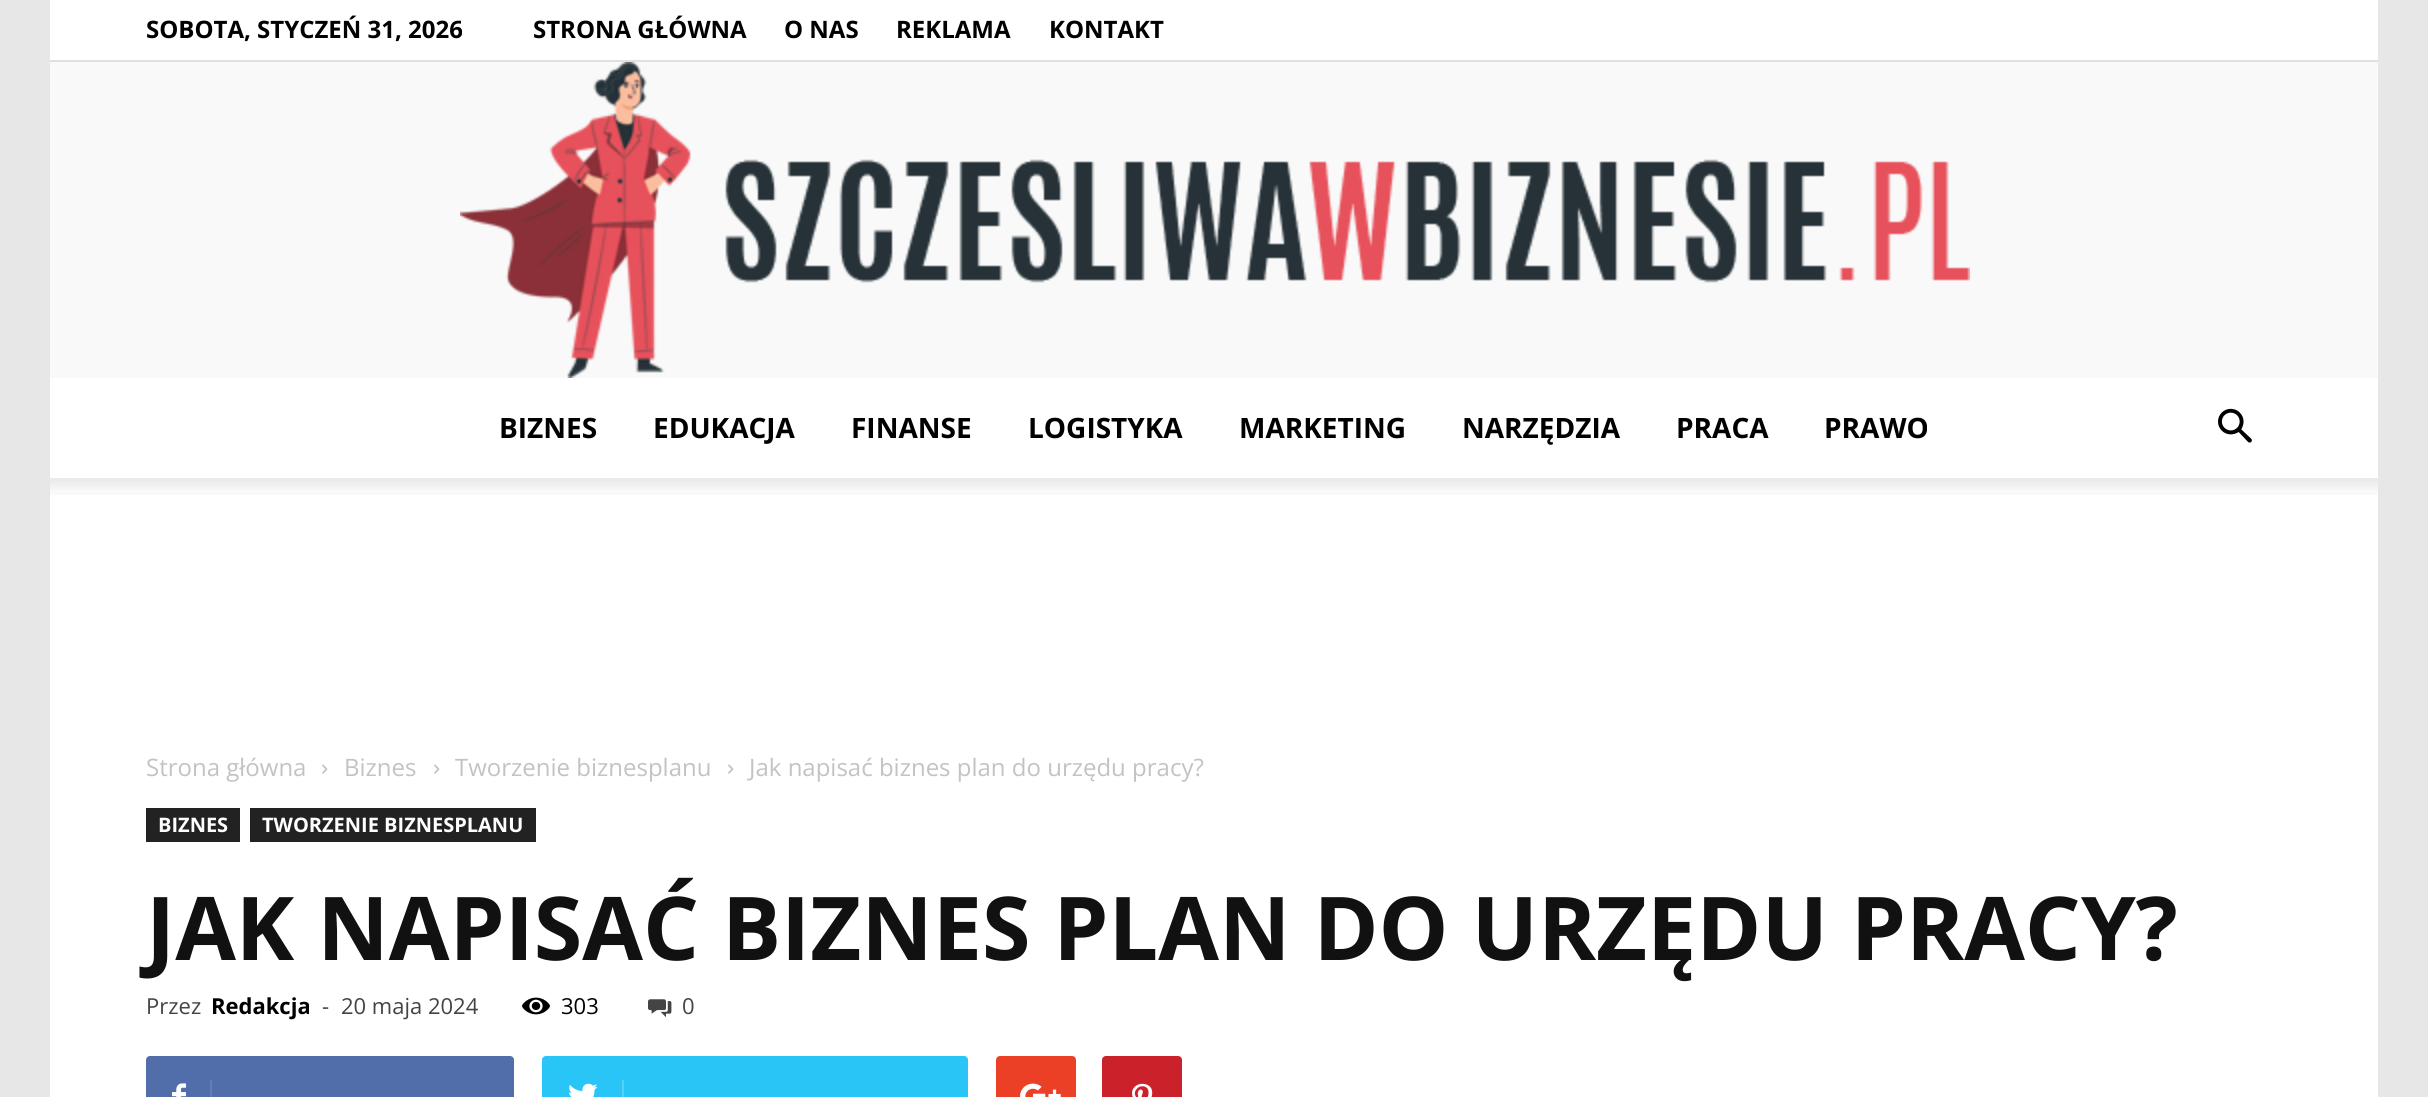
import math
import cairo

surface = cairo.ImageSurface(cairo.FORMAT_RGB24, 2428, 1097)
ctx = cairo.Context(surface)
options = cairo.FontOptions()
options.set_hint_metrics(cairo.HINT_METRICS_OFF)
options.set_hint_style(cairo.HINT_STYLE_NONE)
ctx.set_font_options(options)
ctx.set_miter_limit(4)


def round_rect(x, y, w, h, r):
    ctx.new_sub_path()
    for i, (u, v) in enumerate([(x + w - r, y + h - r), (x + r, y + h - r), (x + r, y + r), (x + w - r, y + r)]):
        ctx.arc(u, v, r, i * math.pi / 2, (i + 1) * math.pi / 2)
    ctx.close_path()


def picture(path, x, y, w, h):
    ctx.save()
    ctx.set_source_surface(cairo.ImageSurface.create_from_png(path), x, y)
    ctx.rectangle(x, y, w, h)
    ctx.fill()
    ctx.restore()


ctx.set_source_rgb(0.906, 0.906, 0.906)
ctx.paint()
ctx.set_source_rgb(1, 1, 1)
ctx.rectangle(50, 0, 2328, 60)
ctx.fill()
ctx.set_source_rgb(0.878, 0.878, 0.878)
ctx.rectangle(50, 60, 2328, 2)
ctx.fill()
ctx.select_font_face("Open Sans", cairo.FONT_SLANT_NORMAL, cairo.FONT_WEIGHT_BOLD)
ctx.set_font_size(24)
ctx.set_source_rgb(0, 0, 0)
ctx.move_to(146, 38)
ctx.show_text("SOBOTA, STYCZEŃ 31, 2026")
ctx.move_to(533, 38)
ctx.show_text("STRONA GŁÓWNA")
ctx.move_to(784, 38)
ctx.show_text("O NAS")
ctx.move_to(896, 38)
ctx.show_text("REKLAMA")
ctx.move_to(1049, 38)
ctx.show_text("KONTAKT")
ctx.set_source_rgb(0.976, 0.976, 0.976)
ctx.rectangle(50, 62, 2328, 316)
ctx.fill()
picture("img1.png", 460, 62, 1510, 316)
ctx.set_source_rgb(1, 1, 1)
ctx.rectangle(50, 378, 2328, 719)
ctx.fill()
ctx.set_font_size(28)
ctx.set_source_rgb(0, 0, 0)
ctx.move_to(499, 438)
ctx.show_text("BIZNES")
ctx.move_to(653, 438)
ctx.show_text("EDUKACJA")
ctx.move_to(851, 438)
ctx.show_text("FINANSE")
ctx.move_to(1028, 438)
ctx.show_text("LOGISTYKA")
ctx.move_to(1239, 438)
ctx.show_text("MARKETING")
ctx.move_to(1462, 438)
ctx.show_text("NARZĘDZIA")
ctx.move_to(1676, 438)
ctx.show_text("PRACA")
ctx.move_to(1824, 438)
ctx.show_text("PRAWO")
picture("img2.png", 2218, 408, 34, 35)
picture("img3.png", 50, 478, 2328, 17)
ctx.select_font_face("Open Sans")
ctx.set_font_size(24)
ctx.set_source_rgb(0.765, 0.765, 0.765)
ctx.move_to(146, 776)
ctx.show_text("Strona główna")
picture("img4.png", 322, 764, 6, 10)
ctx.move_to(344, 776)
ctx.show_text("Biznes")
picture("img4.png", 434, 764, 6, 10)
ctx.move_to(455, 776)
ctx.show_text("Tworzenie biznesplanu")
picture("img4.png", 728, 764, 6, 10)
ctx.move_to(749, 776)
ctx.show_text("Jak napisać biznes plan do urzędu pracy?")
ctx.set_source_rgb(0.133, 0.133, 0.133)
ctx.rectangle(146, 808, 94, 34)
ctx.fill()
ctx.select_font_face("Open Sans", cairo.FONT_SLANT_NORMAL, cairo.FONT_WEIGHT_BOLD)
ctx.set_font_size(20)
ctx.set_source_rgb(1, 1, 1)
ctx.move_to(158, 832)
ctx.show_text("BIZNES")
ctx.set_source_rgb(0.133, 0.133, 0.133)
ctx.rectangle(250, 808, 286, 34)
ctx.fill()
ctx.set_source_rgb(1, 1, 1)
ctx.move_to(262, 832)
ctx.show_text("TWORZENIE BIZNESPLANU")
ctx.set_font_size(88)
ctx.set_source_rgb(0.067, 0.067, 0.067)
ctx.move_to(146, 960)
ctx.show_text("JAK NAPISAĆ BIZNES PLAN DO URZĘDU PRACY?")
ctx.select_font_face("Open Sans")
ctx.set_font_size(22)
ctx.set_source_rgb(0.267, 0.267, 0.267)
ctx.move_to(146, 1014)
ctx.show_text("Przez")
ctx.select_font_face("Open Sans", cairo.FONT_SLANT_NORMAL, cairo.FONT_WEIGHT_BOLD)
ctx.set_source_rgb(0, 0, 0)
ctx.move_to(211, 1014)
ctx.show_text("Redakcja")
ctx.select_font_face("Open Sans")
ctx.set_source_rgb(0.267, 0.267, 0.267)
ctx.move_to(322, 1014)
ctx.show_text("-")
ctx.move_to(341, 1014)
ctx.show_text("20 maja 2024")
picture("img5.png", 522, 997, 28, 18)
ctx.set_source_rgb(0, 0, 0)
ctx.move_to(561, 1014)
ctx.show_text("303")
picture("img6.png", 648, 999, 24, 19)
ctx.set_source_rgb(0.267, 0.267, 0.267)
ctx.move_to(682, 1014)
ctx.show_text("0")
ctx.set_source_rgb(0.318, 0.431, 0.671)
round_rect(146, 1056, 368, 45, 4)
ctx.fill()
picture("img7.png", 172, 1083, 14, 14)
ctx.set_source_rgb(0.384, 0.49, 0.702)
ctx.rectangle(210, 1080, 2, 17)
ctx.fill()
ctx.set_source_rgb(0.161, 0.773, 0.965)
round_rect(542, 1056, 426, 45, 4)
ctx.fill()
picture("img8.png", 569, 1083, 29, 14)
ctx.set_source_rgb(0.329, 0.82, 0.973)
ctx.rectangle(622, 1080, 2, 17)
ctx.fill()
ctx.set_source_rgb(0.922, 0.251, 0.149)
round_rect(996, 1056, 80, 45, 4)
ctx.fill()
picture("img9.png", 1020, 1083, 41, 14)
ctx.set_source_rgb(0.792, 0.129, 0.165)
round_rect(1102, 1056, 80, 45, 4)
ctx.fill()
picture("img10.png", 1132, 1083, 21, 14)
surface.write_to_png("page.png")
